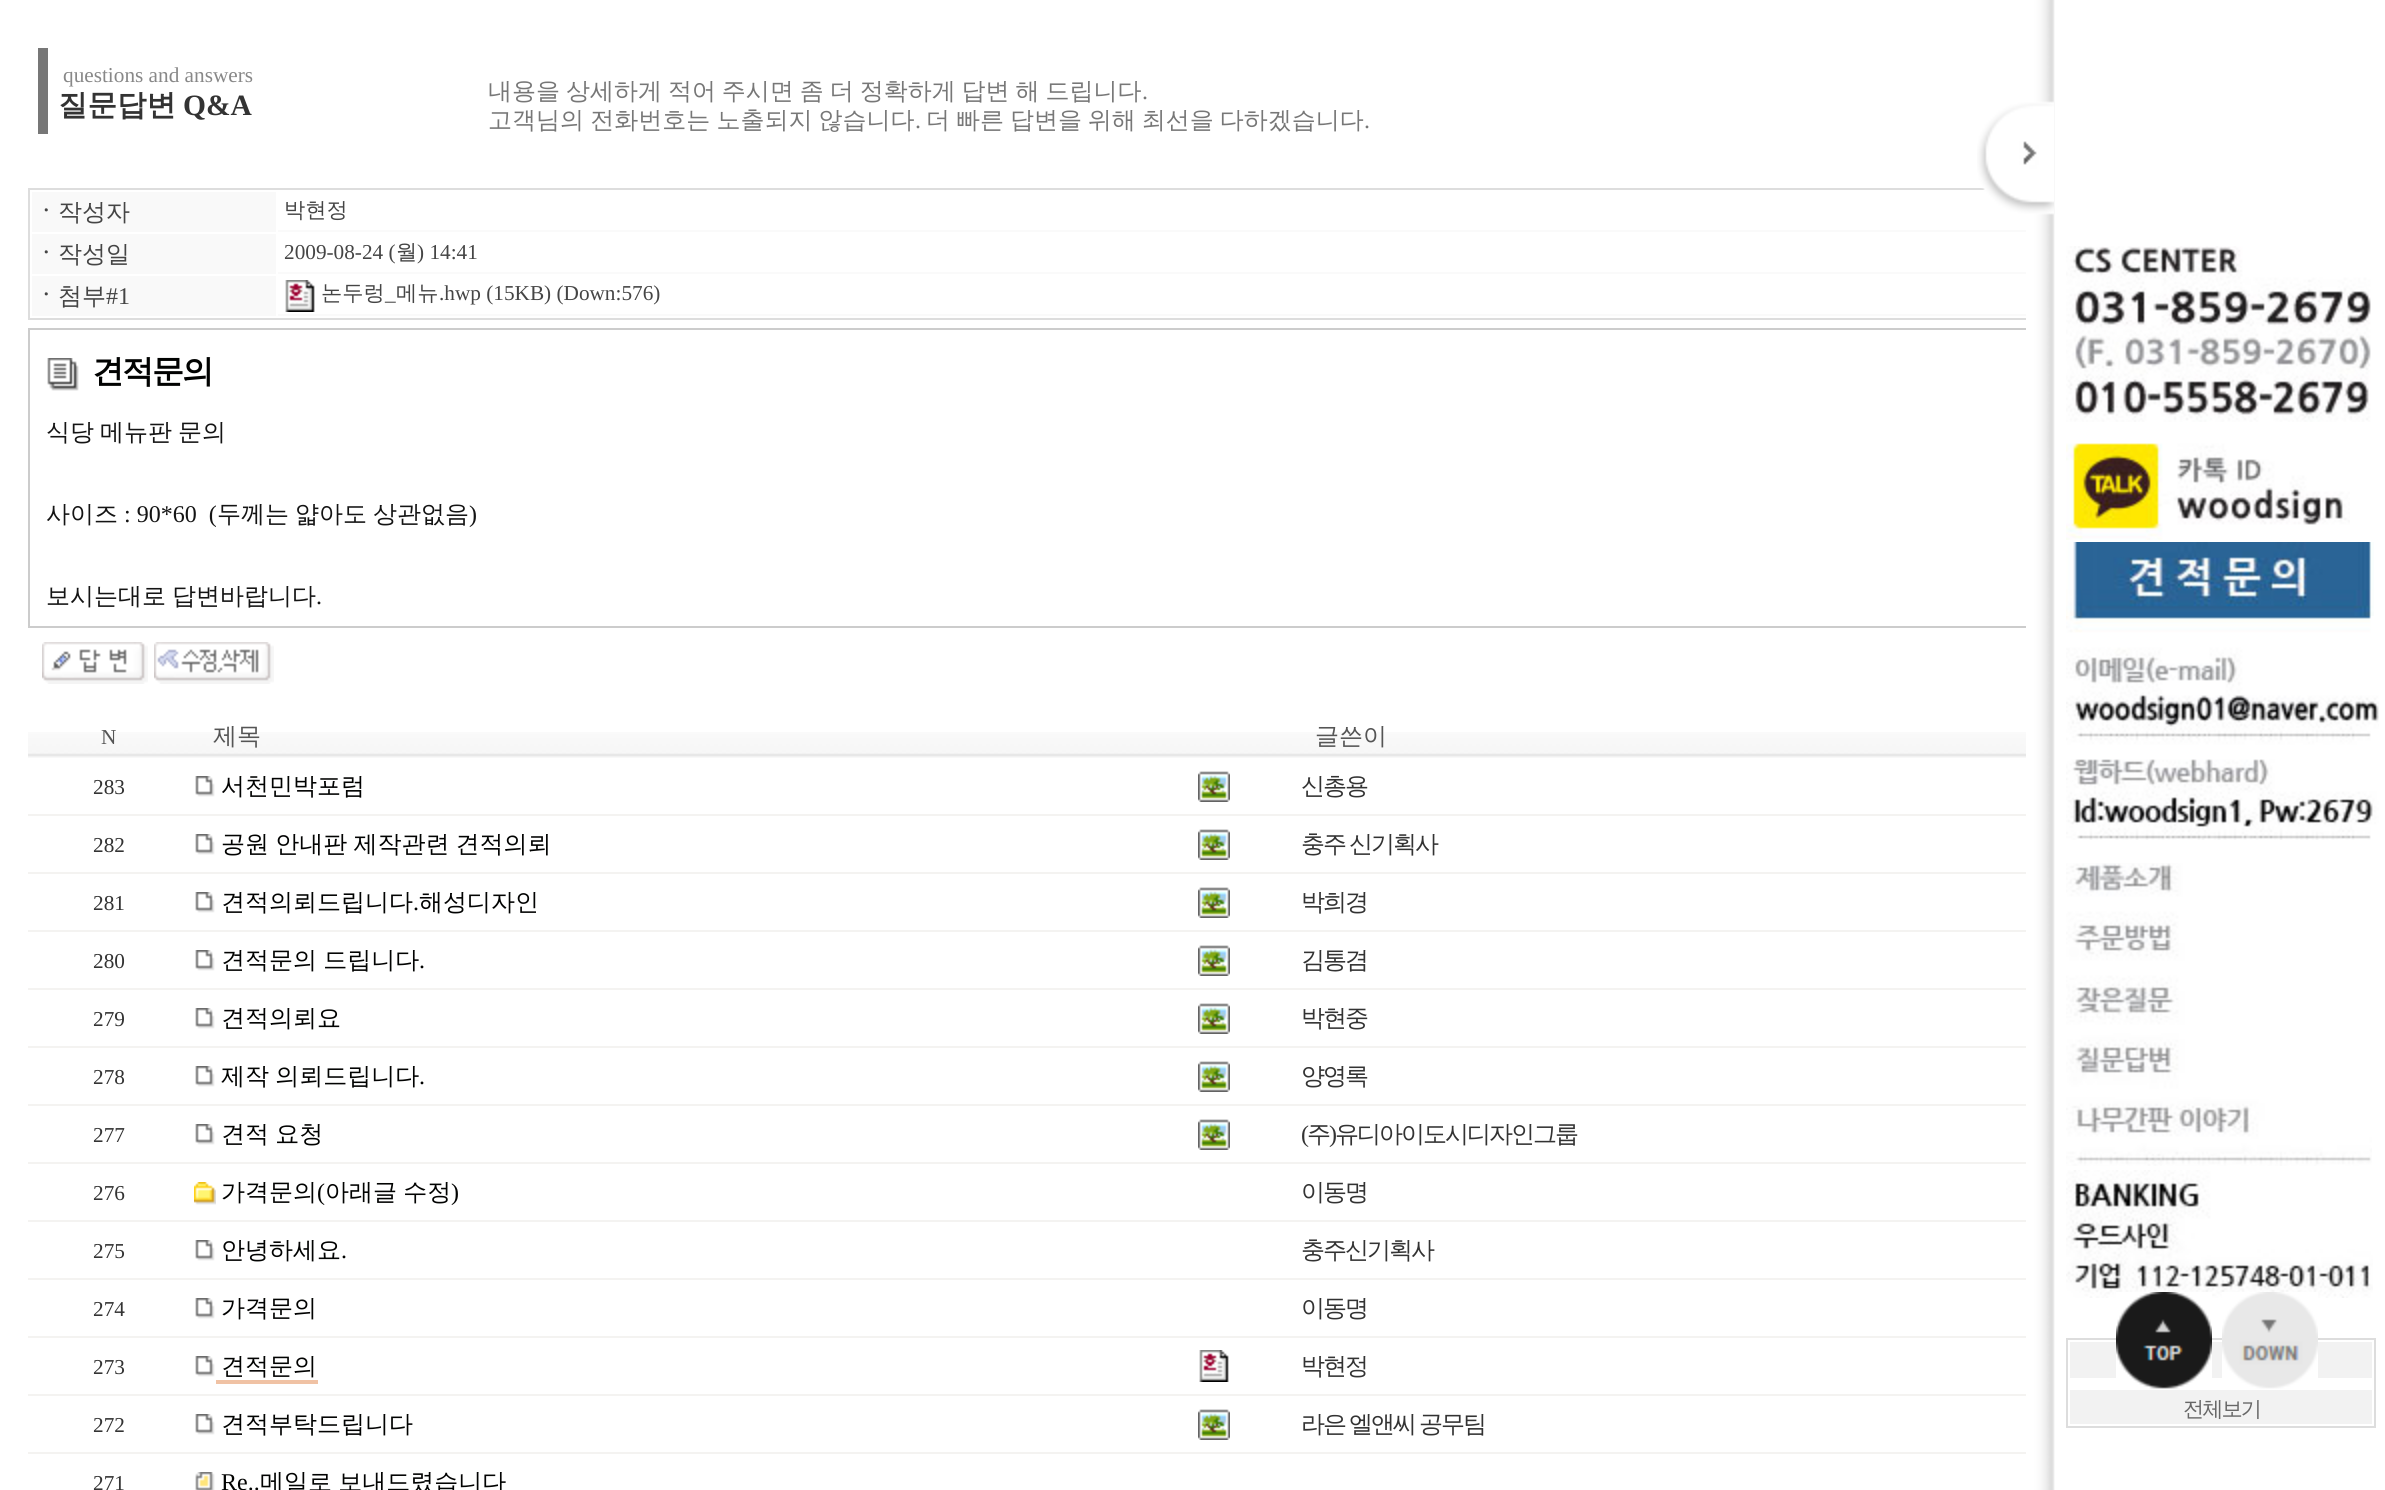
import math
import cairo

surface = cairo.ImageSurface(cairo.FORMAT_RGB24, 2385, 1490)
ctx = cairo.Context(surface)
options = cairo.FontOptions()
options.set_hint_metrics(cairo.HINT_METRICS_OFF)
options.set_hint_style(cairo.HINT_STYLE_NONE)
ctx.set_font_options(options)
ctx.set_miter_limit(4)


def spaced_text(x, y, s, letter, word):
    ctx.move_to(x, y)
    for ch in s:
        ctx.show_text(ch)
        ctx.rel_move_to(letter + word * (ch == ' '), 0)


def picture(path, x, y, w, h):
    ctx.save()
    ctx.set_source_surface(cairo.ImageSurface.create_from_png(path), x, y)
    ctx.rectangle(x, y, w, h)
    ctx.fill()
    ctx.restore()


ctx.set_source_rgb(1, 1, 1)
ctx.paint()
ctx.set_source_rgb(0.467, 0.467, 0.467)
ctx.rectangle(38, 48, 10, 86)
ctx.fill()
ctx.select_font_face("Liberation Serif")
ctx.set_font_size(21.25)
ctx.set_source_rgb(0.533, 0.533, 0.533)
ctx.move_to(63, 82)
ctx.show_text("questions and answers")
ctx.select_font_face("WenQuanYi Zen Hei", cairo.FONT_SLANT_NORMAL, cairo.FONT_WEIGHT_BOLD)
ctx.set_font_size(29.5)
ctx.set_source_rgb(0.2, 0.2, 0.2)
ctx.move_to(58, 115)
ctx.show_text("질문답변")
ctx.select_font_face("Liberation Serif", cairo.FONT_SLANT_NORMAL, cairo.FONT_WEIGHT_BOLD)
ctx.move_to(183, 115)
ctx.show_text("Q&A")
ctx.select_font_face("WenQuanYi Zen Hei Medium")
ctx.set_font_size(24)
ctx.set_source_rgb(0.467, 0.467, 0.467)
spaced_text(488, 99, "내용을 상세하게 적어 주시면 좀 더 정확하게 답변 해 드립니다", 0, -1.25)
ctx.select_font_face("Liberation Serif")
ctx.move_to(1142, 99)
ctx.show_text(".")
ctx.select_font_face("WenQuanYi Zen Hei Medium")
spaced_text(488, 128, "고객님의 전화번호는 노출되지 않습니다", 0, -1)
ctx.select_font_face("Liberation Serif")
ctx.move_to(915, 128)
ctx.show_text(".")
ctx.select_font_face("WenQuanYi Zen Hei Medium")
spaced_text(926, 128, "더 빠른 답변을 위해 최선을 다하겠습니다", 0, -1.25)
ctx.select_font_face("Liberation Serif")
ctx.move_to(1364, 128)
ctx.show_text(".")
ctx.rectangle(29, 189, 2258, 130)
ctx.set_source_rgb(0.867, 0.867, 0.867)
ctx.stroke()
ctx.set_source_rgb(0.973, 0.973, 0.973)
ctx.rectangle(32, 192, 244, 40)
ctx.fill()
ctx.select_font_face("WenQuanYi Zen Hei", cairo.FONT_SLANT_NORMAL, cairo.FONT_WEIGHT_BOLD)
ctx.set_source_rgb(0.271, 0.271, 0.271)
ctx.move_to(34, 220)
ctx.show_text("ㆍ")
ctx.select_font_face("WenQuanYi Zen Hei Medium")
ctx.move_to(58, 220)
ctx.show_text("작성자")
ctx.set_source_rgb(0.98, 0.98, 0.98)
ctx.rectangle(278, 230, 1748, 2)
ctx.fill()
ctx.set_font_size(21.25)
ctx.set_source_rgb(0.271, 0.271, 0.271)
ctx.move_to(284, 217)
ctx.show_text("박현정")
ctx.set_source_rgb(0.973, 0.973, 0.973)
ctx.rectangle(32, 234, 244, 40)
ctx.fill()
ctx.select_font_face("WenQuanYi Zen Hei", cairo.FONT_SLANT_NORMAL, cairo.FONT_WEIGHT_BOLD)
ctx.set_font_size(24)
ctx.set_source_rgb(0.271, 0.271, 0.271)
ctx.move_to(34, 262)
ctx.show_text("ㆍ")
ctx.select_font_face("WenQuanYi Zen Hei Medium")
ctx.move_to(58, 262)
ctx.show_text("작성일")
ctx.set_source_rgb(0.98, 0.98, 0.98)
ctx.rectangle(278, 272, 1748, 2)
ctx.fill()
ctx.select_font_face("Liberation Serif")
ctx.set_font_size(21.25)
ctx.set_source_rgb(0.271, 0.271, 0.271)
ctx.move_to(284, 259)
ctx.show_text("2009-08-24 (")
ctx.select_font_face("WenQuanYi Zen Hei Medium")
ctx.move_to(396, 259)
ctx.show_text("월")
ctx.select_font_face("Liberation Serif")
ctx.move_to(417, 259)
ctx.show_text(") 14:41")
ctx.set_source_rgb(0.973, 0.973, 0.973)
ctx.rectangle(32, 276, 244, 40)
ctx.fill()
ctx.select_font_face("WenQuanYi Zen Hei", cairo.FONT_SLANT_NORMAL, cairo.FONT_WEIGHT_BOLD)
ctx.set_font_size(24)
ctx.set_source_rgb(0.271, 0.271, 0.271)
ctx.move_to(34, 304)
ctx.show_text("ㆍ")
ctx.select_font_face("WenQuanYi Zen Hei Medium")
ctx.move_to(58, 304)
ctx.show_text("첨부")
ctx.select_font_face("Liberation Serif")
ctx.move_to(106, 304)
ctx.show_text("#1")
ctx.set_source_rgb(0.98, 0.98, 0.98)
ctx.rectangle(278, 314, 1748, 2)
ctx.fill()
picture("img1.png", 285, 280, 30, 32)
ctx.select_font_face("WenQuanYi Zen Hei Medium")
ctx.set_font_size(21.25)
ctx.set_source_rgb(0.271, 0.271, 0.271)
ctx.move_to(321, 300)
ctx.show_text("논두렁")
ctx.select_font_face("Liberation Serif")
ctx.move_to(385, 300)
ctx.show_text("_")
ctx.select_font_face("WenQuanYi Zen Hei Medium")
ctx.move_to(396, 300)
ctx.show_text("메뉴")
ctx.select_font_face("Liberation Serif")
ctx.move_to(439, 300)
ctx.show_text(".hwp (15KB) (Down:576)")
ctx.rectangle(29, 329, 2258, 298)
ctx.set_source_rgb(0.8, 0.8, 0.8)
ctx.stroke()
picture("img2.png", 47, 358, 32, 33)
ctx.select_font_face("WenQuanYi Zen Hei", cairo.FONT_SLANT_NORMAL, cairo.FONT_WEIGHT_BOLD)
ctx.set_font_size(32)
ctx.set_source_rgb(0.004, 0.008, 0.004)
spaced_text(92, 382, "견적문의", -2, 0)
ctx.select_font_face("WenQuanYi Zen Hei Medium")
ctx.set_font_size(24)
ctx.set_source_rgb(0.082, 0.082, 0.082)
spaced_text(46, 440, "식당 메뉴판 문의", 0, -1.25)
ctx.move_to(46, 522)
ctx.show_text("사이즈")
ctx.select_font_face("Liberation Serif")
ctx.move_to(124, 522)
ctx.show_text(": 90*60  (")
ctx.select_font_face("WenQuanYi Zen Hei Medium")
ctx.move_to(217, 522)
ctx.show_text("두께는")
ctx.move_to(295, 522)
ctx.show_text("얇아도")
ctx.move_to(373, 522)
ctx.show_text("상관없음")
ctx.select_font_face("Liberation Serif")
ctx.move_to(469, 522)
ctx.show_text(")")
ctx.select_font_face("WenQuanYi Zen Hei Medium")
spaced_text(46, 604, "보시는대로 답변바랍니다", 0, -1.25)
ctx.select_font_face("Liberation Serif")
ctx.move_to(316, 604)
ctx.show_text(".")
picture("img3.png", 42, 642, 106, 42)
picture("img4.png", 154, 642, 120, 42)
picture("img5.png", 28, 732, 162, 26)
ctx.set_font_size(21.25)
ctx.set_source_rgb(0.333, 0.333, 0.333)
ctx.move_to(101, 744)
ctx.show_text("N")
picture("img6.png", 190, 732, 1006, 26)
ctx.select_font_face("WenQuanYi Zen Hei Medium")
ctx.set_font_size(24)
ctx.move_to(213, 744)
ctx.show_text("제목")
picture("img7.png", 1196, 732, 100, 26)
picture("img8.png", 1296, 732, 730, 26)
ctx.move_to(1315, 744)
ctx.show_text("글쓴이")
ctx.select_font_face("Liberation Serif")
ctx.set_font_size(21.25)
ctx.set_source_rgb(0.2, 0.2, 0.2)
ctx.move_to(93, 794)
ctx.show_text("283")
picture("img9.png", 195, 776, 20, 21)
ctx.select_font_face("WenQuanYi Zen Hei Medium")
ctx.set_font_size(24)
ctx.set_source_rgb(0.004, 0.008, 0.004)
ctx.move_to(221, 794)
ctx.show_text("서천민박포럼")
picture("img10.png", 1198, 771, 32, 31)
ctx.set_source_rgb(0.2, 0.2, 0.2)
spaced_text(1301, 794, "신총용", -2, 0)
ctx.set_source_rgb(0.957, 0.953, 0.945)
ctx.rectangle(28, 814, 1998, 2)
ctx.fill()
ctx.select_font_face("Liberation Serif")
ctx.set_font_size(21.25)
ctx.set_source_rgb(0.2, 0.2, 0.2)
ctx.move_to(93, 852)
ctx.show_text("282")
picture("img9.png", 195, 834, 20, 21)
ctx.select_font_face("WenQuanYi Zen Hei Medium")
ctx.set_font_size(24)
ctx.set_source_rgb(0.004, 0.008, 0.004)
spaced_text(221, 852, "공원 안내판 제작관련 견적의뢰", 0, -1)
picture("img10.png", 1198, 829, 32, 31)
ctx.set_source_rgb(0.2, 0.2, 0.2)
spaced_text(1301, 852, "충주 신기획사", -2, -1.25)
ctx.set_source_rgb(0.957, 0.953, 0.945)
ctx.rectangle(28, 872, 1998, 2)
ctx.fill()
ctx.select_font_face("Liberation Serif")
ctx.set_font_size(21.25)
ctx.set_source_rgb(0.2, 0.2, 0.2)
ctx.move_to(93, 910)
ctx.show_text("281")
picture("img9.png", 195, 892, 20, 21)
ctx.select_font_face("WenQuanYi Zen Hei Medium")
ctx.set_font_size(24)
ctx.set_source_rgb(0.004, 0.008, 0.004)
ctx.move_to(221, 910)
ctx.show_text("견적의뢰드립니다")
ctx.select_font_face("Liberation Serif")
ctx.move_to(413, 910)
ctx.show_text(".")
ctx.select_font_face("WenQuanYi Zen Hei Medium")
ctx.move_to(419, 910)
ctx.show_text("해성디자인")
picture("img10.png", 1198, 887, 32, 31)
ctx.set_source_rgb(0.2, 0.2, 0.2)
spaced_text(1301, 910, "박희경", -2, 0)
ctx.set_source_rgb(0.957, 0.953, 0.945)
ctx.rectangle(28, 930, 1998, 2)
ctx.fill()
ctx.select_font_face("Liberation Serif")
ctx.set_font_size(21.25)
ctx.set_source_rgb(0.2, 0.2, 0.2)
ctx.move_to(93, 968)
ctx.show_text("280")
picture("img9.png", 195, 950, 20, 21)
ctx.select_font_face("WenQuanYi Zen Hei Medium")
ctx.set_font_size(24)
ctx.set_source_rgb(0.004, 0.008, 0.004)
spaced_text(221, 968, "견적문의 드립니다", 0, -1)
ctx.select_font_face("Liberation Serif")
ctx.move_to(419, 968)
ctx.show_text(".")
picture("img10.png", 1198, 945, 32, 31)
ctx.select_font_face("WenQuanYi Zen Hei Medium")
ctx.set_source_rgb(0.2, 0.2, 0.2)
spaced_text(1301, 968, "김통겸", -2, 0)
ctx.set_source_rgb(0.957, 0.953, 0.945)
ctx.rectangle(28, 988, 1998, 2)
ctx.fill()
ctx.select_font_face("Liberation Serif")
ctx.set_font_size(21.25)
ctx.set_source_rgb(0.2, 0.2, 0.2)
ctx.move_to(93, 1026)
ctx.show_text("279")
picture("img9.png", 195, 1008, 20, 21)
ctx.select_font_face("WenQuanYi Zen Hei Medium")
ctx.set_font_size(24)
ctx.set_source_rgb(0.004, 0.008, 0.004)
ctx.move_to(221, 1026)
ctx.show_text("견적의뢰요")
picture("img10.png", 1198, 1003, 32, 31)
ctx.set_source_rgb(0.2, 0.2, 0.2)
spaced_text(1301, 1026, "박현중", -2, 0)
ctx.set_source_rgb(0.957, 0.953, 0.945)
ctx.rectangle(28, 1046, 1998, 2)
ctx.fill()
ctx.select_font_face("Liberation Serif")
ctx.set_font_size(21.25)
ctx.set_source_rgb(0.2, 0.2, 0.2)
ctx.move_to(93, 1084)
ctx.show_text("278")
picture("img9.png", 195, 1066, 20, 21)
ctx.select_font_face("WenQuanYi Zen Hei Medium")
ctx.set_font_size(24)
ctx.set_source_rgb(0.004, 0.008, 0.004)
spaced_text(221, 1084, "제작 의뢰드립니다", 0, -1)
ctx.select_font_face("Liberation Serif")
ctx.move_to(419, 1084)
ctx.show_text(".")
picture("img10.png", 1198, 1061, 32, 31)
ctx.select_font_face("WenQuanYi Zen Hei Medium")
ctx.set_source_rgb(0.2, 0.2, 0.2)
spaced_text(1301, 1084, "양영록", -2, 0)
ctx.set_source_rgb(0.957, 0.953, 0.945)
ctx.rectangle(28, 1104, 1998, 2)
ctx.fill()
ctx.select_font_face("Liberation Serif")
ctx.set_font_size(21.25)
ctx.set_source_rgb(0.2, 0.2, 0.2)
ctx.move_to(93, 1142)
ctx.show_text("277")
picture("img9.png", 195, 1124, 20, 21)
ctx.select_font_face("WenQuanYi Zen Hei Medium")
ctx.set_font_size(24)
ctx.set_source_rgb(0.004, 0.008, 0.004)
spaced_text(221, 1142, "견적 요청", 0, -1)
picture("img10.png", 1198, 1119, 32, 31)
ctx.select_font_face("Liberation Serif")
ctx.set_source_rgb(0.2, 0.2, 0.2)
spaced_text(1301, 1142, "(", -2, 0)
ctx.select_font_face("WenQuanYi Zen Hei Medium")
spaced_text(1307, 1142, "주", -2, 0)
ctx.select_font_face("Liberation Serif")
spaced_text(1329, 1142, ")", -2, 0)
ctx.select_font_face("WenQuanYi Zen Hei Medium")
spaced_text(1335, 1142, "유디아이도시디자인그룹", -2, 0)
ctx.set_source_rgb(0.957, 0.953, 0.945)
ctx.rectangle(28, 1162, 1998, 2)
ctx.fill()
ctx.select_font_face("Liberation Serif")
ctx.set_font_size(21.25)
ctx.set_source_rgb(0.2, 0.2, 0.2)
ctx.move_to(93, 1200)
ctx.show_text("276")
picture("img11.png", 194, 1182, 22, 23)
ctx.select_font_face("WenQuanYi Zen Hei Medium")
ctx.set_font_size(24)
ctx.set_source_rgb(0.004, 0.008, 0.004)
ctx.move_to(221, 1200)
ctx.show_text("가격문의")
ctx.select_font_face("Liberation Serif")
ctx.move_to(317, 1200)
ctx.show_text("(")
ctx.select_font_face("WenQuanYi Zen Hei Medium")
spaced_text(325, 1200, "아래글 수정", 0, -1)
ctx.select_font_face("Liberation Serif")
ctx.move_to(451, 1200)
ctx.show_text(")")
ctx.select_font_face("WenQuanYi Zen Hei Medium")
ctx.set_source_rgb(0.2, 0.2, 0.2)
spaced_text(1301, 1200, "이동명", -2, 0)
ctx.set_source_rgb(0.957, 0.953, 0.945)
ctx.rectangle(28, 1220, 1998, 2)
ctx.fill()
ctx.select_font_face("Liberation Serif")
ctx.set_font_size(21.25)
ctx.set_source_rgb(0.2, 0.2, 0.2)
ctx.move_to(93, 1258)
ctx.show_text("275")
picture("img9.png", 195, 1240, 20, 21)
ctx.select_font_face("WenQuanYi Zen Hei Medium")
ctx.set_font_size(24)
ctx.set_source_rgb(0.004, 0.008, 0.004)
ctx.move_to(221, 1258)
ctx.show_text("안녕하세요")
ctx.select_font_face("Liberation Serif")
ctx.move_to(341, 1258)
ctx.show_text(".")
ctx.select_font_face("WenQuanYi Zen Hei Medium")
ctx.set_source_rgb(0.2, 0.2, 0.2)
spaced_text(1301, 1258, "충주신기획사", -2, 0)
ctx.set_source_rgb(0.957, 0.953, 0.945)
ctx.rectangle(28, 1278, 1998, 2)
ctx.fill()
ctx.select_font_face("Liberation Serif")
ctx.set_font_size(21.25)
ctx.set_source_rgb(0.2, 0.2, 0.2)
ctx.move_to(93, 1316)
ctx.show_text("274")
picture("img9.png", 195, 1298, 20, 21)
ctx.select_font_face("WenQuanYi Zen Hei Medium")
ctx.set_font_size(24)
ctx.set_source_rgb(0.004, 0.008, 0.004)
ctx.move_to(221, 1316)
ctx.show_text("가격문의")
ctx.set_source_rgb(0.2, 0.2, 0.2)
spaced_text(1301, 1316, "이동명", -2, 0)
ctx.set_source_rgb(0.957, 0.953, 0.945)
ctx.rectangle(28, 1336, 1998, 2)
ctx.fill()
ctx.select_font_face("Liberation Serif")
ctx.set_font_size(21.25)
ctx.set_source_rgb(0.2, 0.2, 0.2)
ctx.move_to(93, 1374)
ctx.show_text("273")
picture("img9.png", 195, 1356, 20, 21)
ctx.select_font_face("WenQuanYi Zen Hei Medium")
ctx.set_font_size(24)
ctx.set_source_rgb(0.004, 0.008, 0.004)
ctx.move_to(221, 1374)
ctx.show_text("견적문의")
ctx.set_source_rgb(0.941, 0.761, 0.643)
ctx.rectangle(216, 1380, 102, 4)
ctx.fill()
picture("img1.png", 1199, 1350, 30, 32)
ctx.set_source_rgb(0.2, 0.2, 0.2)
spaced_text(1301, 1374, "박현정", -2, 0)
ctx.set_source_rgb(0.957, 0.953, 0.945)
ctx.rectangle(28, 1394, 1998, 2)
ctx.fill()
ctx.select_font_face("Liberation Serif")
ctx.set_font_size(21.25)
ctx.set_source_rgb(0.2, 0.2, 0.2)
ctx.move_to(93, 1432)
ctx.show_text("272")
picture("img9.png", 195, 1414, 20, 21)
ctx.select_font_face("WenQuanYi Zen Hei Medium")
ctx.set_font_size(24)
ctx.set_source_rgb(0.004, 0.008, 0.004)
ctx.move_to(221, 1432)
ctx.show_text("견적부탁드립니다")
picture("img10.png", 1198, 1409, 32, 31)
ctx.set_source_rgb(0.2, 0.2, 0.2)
spaced_text(1301, 1432, "라은 엘앤씨 공무팀", -2, -1.25)
ctx.set_source_rgb(0.957, 0.953, 0.945)
ctx.rectangle(28, 1452, 1998, 2)
ctx.fill()
ctx.select_font_face("Liberation Serif")
ctx.set_font_size(21.25)
ctx.set_source_rgb(0.2, 0.2, 0.2)
ctx.move_to(93, 1490)
ctx.show_text("271")
picture("img12.png", 195, 1472, 20, 18)
ctx.set_font_size(24)
ctx.set_source_rgb(0.004, 0.008, 0.004)
ctx.move_to(221, 1490)
ctx.show_text("Re..")
ctx.select_font_face("WenQuanYi Zen Hei Medium")
spaced_text(260, 1490, "메일로 보내드렸습니다", 0, -1)
picture("img13.png", 2026, 0, 262, 1490)
picture("img14.png", 1977, 101, 77, 114)
picture("img15.png", 2066, 246, 305, 176)
picture("img16.png", 2066, 443, 284, 97)
picture("img17.png", 2066, 542, 308, 74)
picture("img18.png", 2066, 616, 313, 224)
picture("img19.png", 2066, 863, 306, 303)
picture("img20.png", 2066, 1170, 307, 128)
ctx.rectangle(2067, 1339, 308, 88)
ctx.set_source_rgb(0.867, 0.867, 0.867)
ctx.stroke()
ctx.set_source_rgb(0.949, 0.949, 0.949)
ctx.rectangle(2070, 1342, 302, 36)
ctx.fill()
picture("img21.png", 2116, 1292, 96, 97)
picture("img22.png", 2222, 1292, 96, 97)
ctx.rectangle(2070, 1390, 302, 34)
ctx.fill()
ctx.set_font_size(21.25)
ctx.set_source_rgb(0.4, 0.4, 0.4)
spaced_text(2183, 1416, "전체보기", -2, 0)
surface.write_to_png("page.png")
